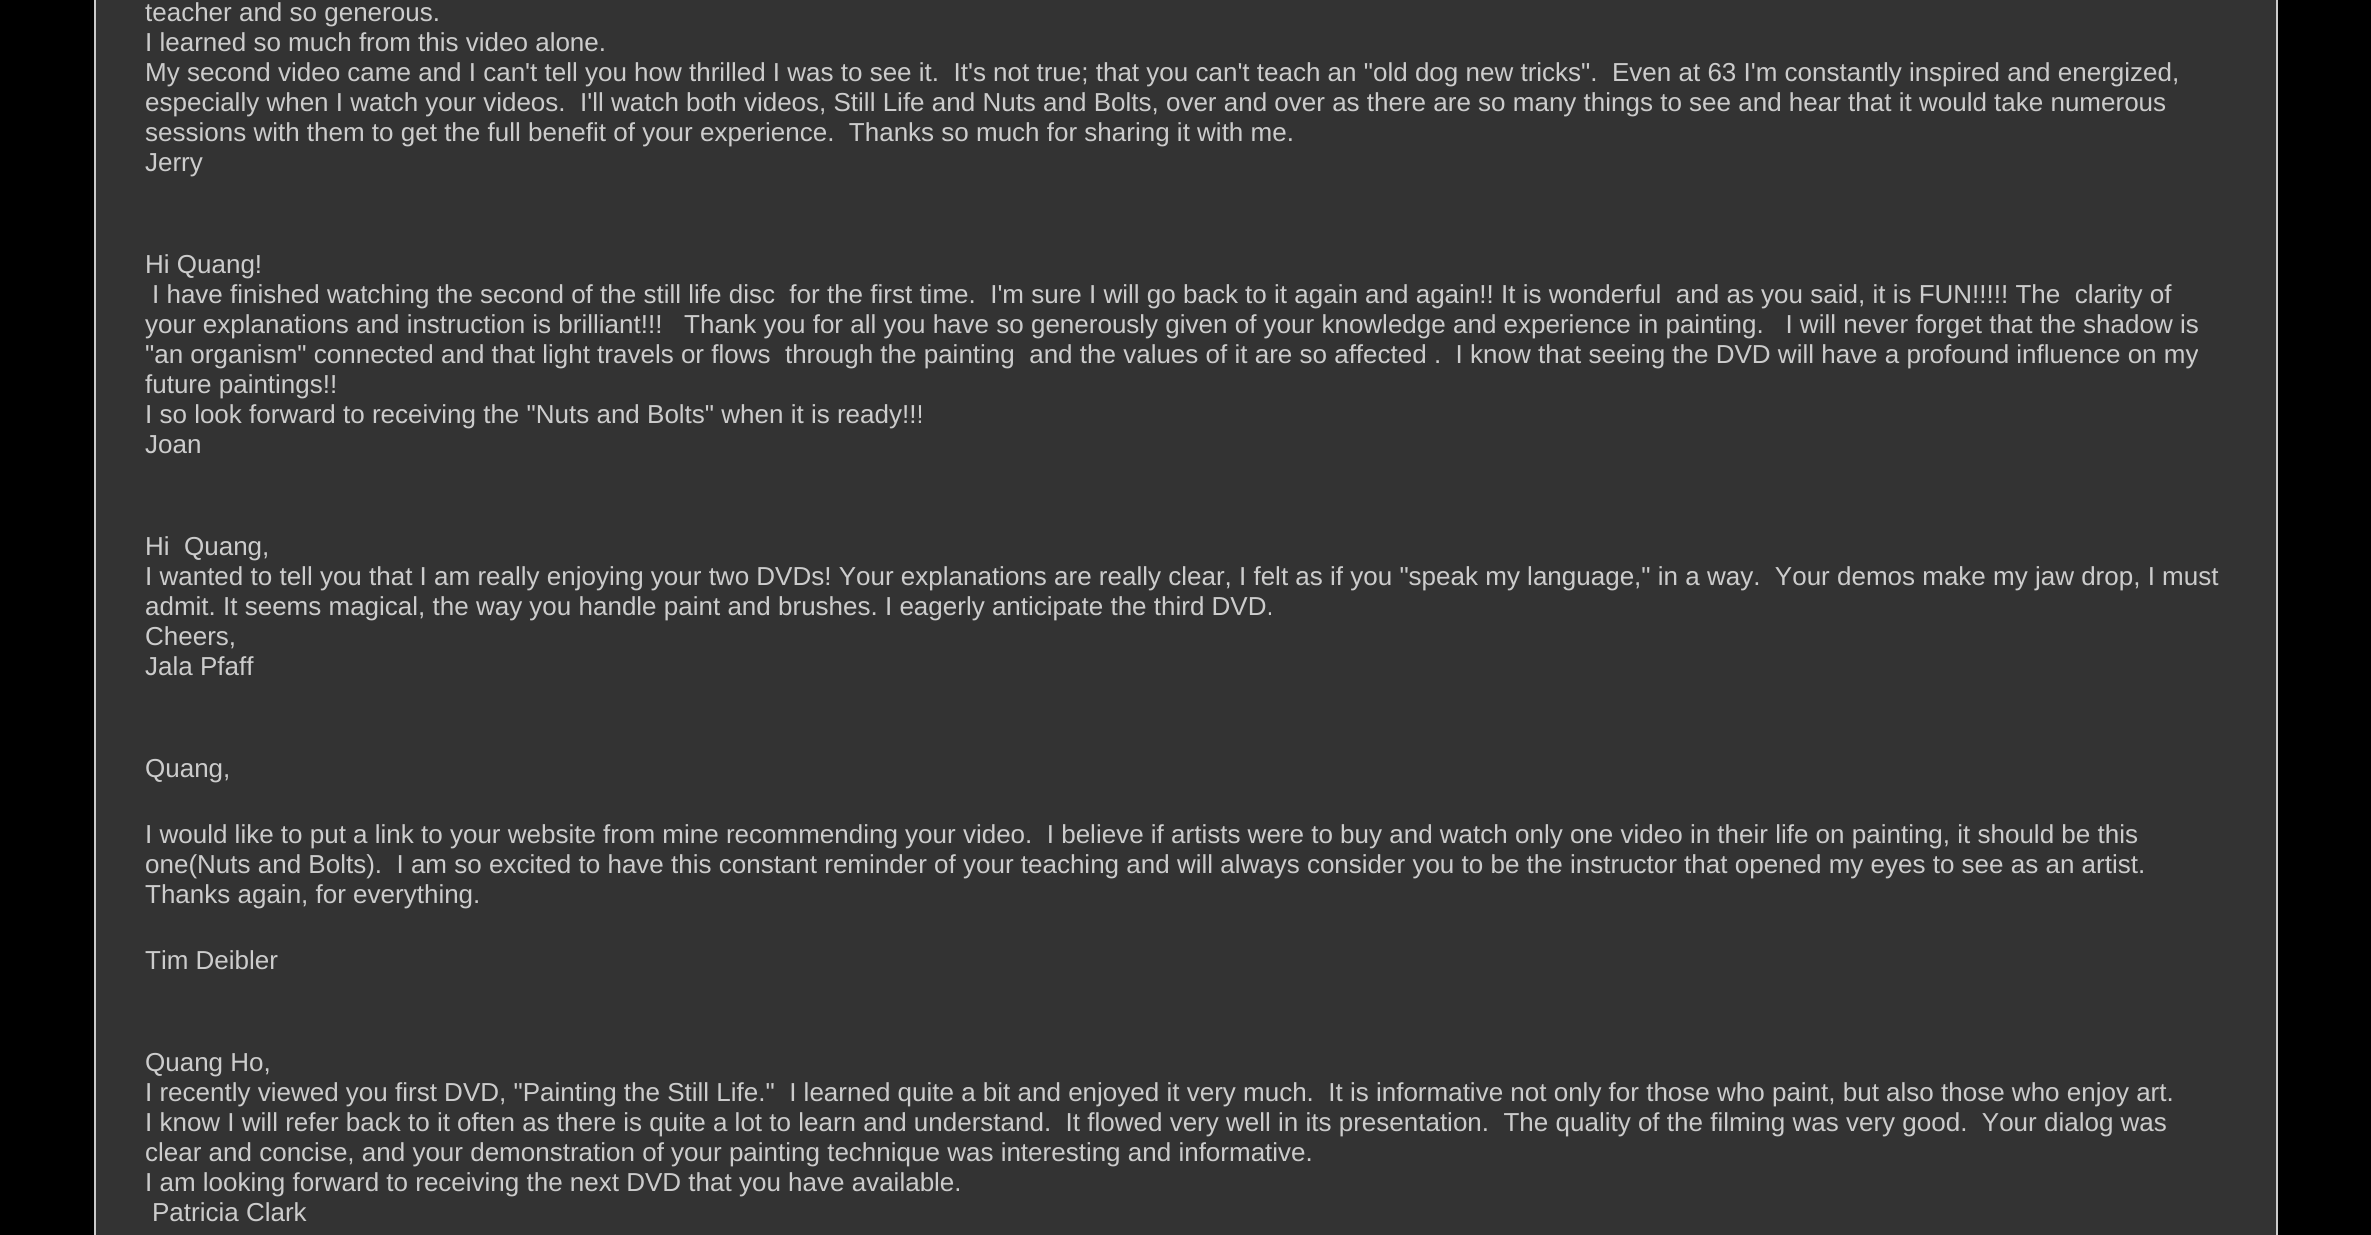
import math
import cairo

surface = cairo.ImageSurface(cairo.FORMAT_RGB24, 2371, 1235)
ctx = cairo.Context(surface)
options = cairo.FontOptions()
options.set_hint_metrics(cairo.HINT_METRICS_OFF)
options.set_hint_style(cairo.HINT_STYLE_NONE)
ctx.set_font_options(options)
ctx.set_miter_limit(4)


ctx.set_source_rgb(0, 0, 0)
ctx.paint()
ctx.set_source_rgb(0.2, 0.2, 0.2)
ctx.rectangle(95, -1, 2182, 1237)
ctx.fill_preserve()
ctx.set_source_rgb(0.8, 0.8, 0.8)
ctx.stroke()
ctx.select_font_face("Liberation Sans")
ctx.set_font_size(26)
ctx.move_to(145, 21)
ctx.show_text("teacher and so generous.")
ctx.move_to(145, 51)
ctx.show_text("I learned so much from this video alone.")
ctx.move_to(145, 81)
ctx.show_text("My second video came and I can't tell you how thrilled I was to see it.  It's not true; that you can't teach an \"old dog new tricks\".  Even at 63 I'm constantly inspired and energized,")
ctx.move_to(145, 111)
ctx.show_text("especially when I watch your videos.  I'll watch both videos, Still Life and Nuts and Bolts, over and over as there are so many things to see and hear that it would take numerous")
ctx.move_to(145, 141)
ctx.show_text("sessions with them to get the full benefit of your experience.  Thanks so much for sharing it with me.")
ctx.move_to(145, 171)
ctx.show_text("Jerry")
ctx.move_to(145, 273)
ctx.show_text("Hi Quang!")
ctx.move_to(152, 303)
ctx.show_text("I have finished watching the second of the still life disc  for the first time.  I'm sure I will go back to it again and again!! It is wonderful  and as you said, it is FUN!!!!! The  clarity of")
ctx.move_to(145, 333)
ctx.show_text("your explanations and instruction is brilliant!!!   Thank you for all you have so generously given of your knowledge and experience in painting.   I will never forget that the shadow is")
ctx.move_to(145, 363)
ctx.show_text("\"an organism\" connected and that light travels or flows  through the painting  and the values of it are so affected .  I know that seeing the DVD will have a profound influence on my")
ctx.move_to(145, 393)
ctx.show_text("future paintings!!")
ctx.move_to(145, 423)
ctx.show_text("I so look forward to receiving the \"Nuts and Bolts\" when it is ready!!!")
ctx.move_to(145, 453)
ctx.show_text("Joan")
ctx.move_to(145, 555)
ctx.show_text("Hi  Quang,")
ctx.move_to(145, 585)
ctx.show_text("I wanted to tell you that I am really enjoying your two DVDs! Your explanations are really clear, I felt as if you \"speak my language,\" in a way.  Your demos make my jaw drop, I must")
ctx.move_to(145, 615)
ctx.show_text("admit. It seems magical, the way you handle paint and brushes. I eagerly anticipate the third DVD.")
ctx.move_to(145, 645)
ctx.show_text("Cheers,")
ctx.move_to(145, 675)
ctx.show_text("Jala Pfaff")
ctx.move_to(145, 777)
ctx.show_text("Quang,")
ctx.move_to(145, 843)
ctx.show_text("I would like to put a link to your website from mine recommending your video.  I believe if artists were to buy and watch only one video in their life on painting, it should be this")
ctx.move_to(145, 873)
ctx.show_text("one(Nuts and Bolts).  I am so excited to have this constant reminder of your teaching and will always consider you to be the instructor that opened my eyes to see as an artist.")
ctx.move_to(145, 903)
ctx.show_text("Thanks again, for everything.")
ctx.move_to(145, 969)
ctx.show_text("Tim Deibler")
ctx.move_to(145, 1071)
ctx.show_text("Quang Ho,")
ctx.move_to(145, 1101)
ctx.show_text("I recently viewed you first DVD, \"Painting the Still Life.\"  I learned quite a bit and enjoyed it very much.  It is informative not only for those who paint, but also those who enjoy art.")
ctx.move_to(145, 1131)
ctx.show_text("I know I will refer back to it often as there is quite a lot to learn and understand.  It flowed very well in its presentation.  The quality of the filming was very good.  Your dialog was")
ctx.move_to(145, 1161)
ctx.show_text("clear and concise, and your demonstration of your painting technique was interesting and informative.")
ctx.move_to(145, 1191)
ctx.show_text("I am looking forward to receiving the next DVD that you have available.")
ctx.move_to(152, 1221)
ctx.show_text("Patricia Clark")
surface.write_to_png("page.png")
